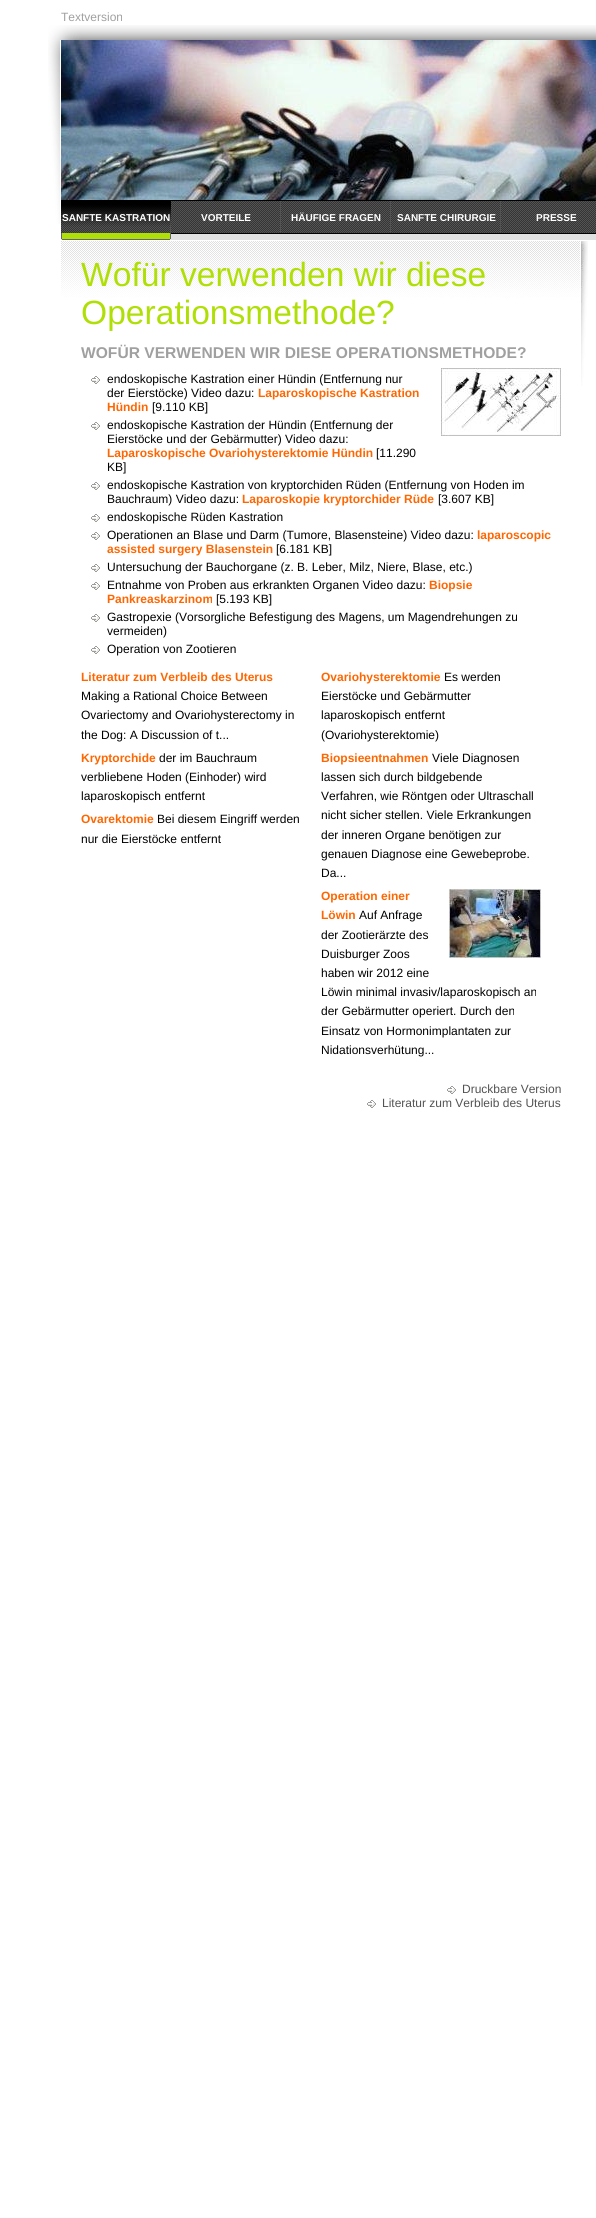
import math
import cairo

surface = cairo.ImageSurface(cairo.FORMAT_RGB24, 596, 2218)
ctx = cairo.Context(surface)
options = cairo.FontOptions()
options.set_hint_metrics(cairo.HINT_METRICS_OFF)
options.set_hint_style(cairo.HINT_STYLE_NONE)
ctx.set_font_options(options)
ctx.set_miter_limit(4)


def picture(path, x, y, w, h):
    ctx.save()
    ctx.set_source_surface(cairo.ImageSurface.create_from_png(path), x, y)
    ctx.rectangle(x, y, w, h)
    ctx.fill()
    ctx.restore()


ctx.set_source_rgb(1, 1, 1)
ctx.paint()
picture("img1.png", 48, 25, 548, 199)
ctx.select_font_face("Liberation Sans")
ctx.set_font_size(12)
ctx.set_source_rgb(0.627, 0.627, 0.627)
ctx.move_to(61, 21)
ctx.show_text("Textversion")
picture("img2.png", 61, 40, 535, 160)
picture("img3.png", 61, 200, 535, 40)
picture("img4.png", 61, 201, 110, 39)
ctx.select_font_face("Liberation Sans", cairo.FONT_SLANT_NORMAL, cairo.FONT_WEIGHT_BOLD)
ctx.set_font_size(10)
ctx.set_source_rgb(1, 1, 1)
ctx.move_to(62, 221)
ctx.show_text("SANFTE KASTRATION")
ctx.set_source_rgb(0.325, 0.325, 0.325)
ctx.rectangle(280, 201, 1, 31)
ctx.fill()
ctx.set_source_rgb(1, 1, 1)
ctx.move_to(201, 221)
ctx.show_text("VORTEILE")
ctx.set_source_rgb(0.325, 0.325, 0.325)
ctx.rectangle(390, 201, 1, 31)
ctx.fill()
ctx.set_source_rgb(1, 1, 1)
ctx.move_to(291, 221)
ctx.show_text("HÄUFIGE FRAGEN")
ctx.set_source_rgb(0.325, 0.325, 0.325)
ctx.rectangle(500, 201, 1, 31)
ctx.fill()
ctx.set_source_rgb(1, 1, 1)
ctx.move_to(397, 221)
ctx.show_text("SANFTE CHIRURGIE")
ctx.move_to(536, 221)
ctx.show_text("PRESSE")
picture("img5.png", 61, 241, 527, 145)
ctx.select_font_face("Liberation Sans")
ctx.set_font_size(33.6)
ctx.set_source_rgb(0.686, 0.875, 0.031)
ctx.move_to(81, 286)
ctx.show_text("Wofür verwenden wir diese")
ctx.move_to(81, 324)
ctx.show_text("Operationsmethode?")
ctx.select_font_face("Liberation Sans", cairo.FONT_SLANT_NORMAL, cairo.FONT_WEIGHT_BOLD)
ctx.set_font_size(15.6)
ctx.set_source_rgb(0.627, 0.627, 0.627)
ctx.move_to(81, 358)
ctx.show_text("WOFÜR VERWENDEN WIR DIESE OPERATIONSMETHODE?")
picture("img6.png", 441, 368, 120, 68)
picture("img7.png", 91, 376, 9, 8)
ctx.select_font_face("Liberation Sans")
ctx.set_font_size(12)
ctx.set_source_rgb(0, 0, 0)
ctx.move_to(107, 383)
ctx.show_text("endoskopische Kastration einer Hündin (Entfernung nur")
ctx.move_to(107, 397)
ctx.show_text("der Eierstöcke) Video dazu:")
ctx.select_font_face("Liberation Sans", cairo.FONT_SLANT_NORMAL, cairo.FONT_WEIGHT_BOLD)
ctx.set_source_rgb(1, 0.4, 0)
ctx.move_to(258, 397)
ctx.show_text("Laparoskopische Kastration")
ctx.move_to(107, 411)
ctx.show_text("Hündin")
ctx.select_font_face("Liberation Sans")
ctx.set_source_rgb(0, 0, 0)
ctx.move_to(152, 411)
ctx.show_text("[9.110 KB]")
picture("img7.png", 91, 422, 9, 8)
ctx.move_to(107, 429)
ctx.show_text("endoskopische Kastration der Hündin (Entfernung der")
ctx.move_to(107, 443)
ctx.show_text("Eierstöcke und der Gebärmutter) Video dazu:")
ctx.select_font_face("Liberation Sans", cairo.FONT_SLANT_NORMAL, cairo.FONT_WEIGHT_BOLD)
ctx.set_source_rgb(1, 0.4, 0)
ctx.move_to(107, 457)
ctx.show_text("Laparoskopische Ovariohysterektomie Hündin")
ctx.select_font_face("Liberation Sans")
ctx.set_source_rgb(0, 0, 0)
ctx.move_to(376, 457)
ctx.show_text("[11.290")
ctx.move_to(107, 471)
ctx.show_text("KB]")
picture("img7.png", 91, 482, 9, 8)
ctx.move_to(107, 489)
ctx.show_text("endoskopische Kastration von kryptorchiden Rüden (Entfernung von Hoden im")
ctx.move_to(107, 503)
ctx.show_text("Bauchraum) Video dazu:")
ctx.select_font_face("Liberation Sans", cairo.FONT_SLANT_NORMAL, cairo.FONT_WEIGHT_BOLD)
ctx.set_source_rgb(1, 0.4, 0)
ctx.move_to(242, 503)
ctx.show_text("Laparoskopie kryptorchider Rüde")
ctx.select_font_face("Liberation Sans")
ctx.set_source_rgb(0, 0, 0)
ctx.move_to(438, 503)
ctx.show_text("[3.607 KB]")
picture("img7.png", 91, 514, 9, 8)
ctx.move_to(107, 521)
ctx.show_text("endoskopische Rüden Kastration")
picture("img7.png", 91, 532, 9, 8)
ctx.move_to(107, 539)
ctx.show_text("Operationen an Blase und Darm (Tumore, Blasensteine) Video dazu:")
ctx.select_font_face("Liberation Sans", cairo.FONT_SLANT_NORMAL, cairo.FONT_WEIGHT_BOLD)
ctx.set_source_rgb(1, 0.4, 0)
ctx.move_to(477, 539)
ctx.show_text("laparoscopic")
ctx.move_to(107, 553)
ctx.show_text("assisted surgery Blasenstein")
ctx.select_font_face("Liberation Sans")
ctx.set_source_rgb(0, 0, 0)
ctx.move_to(276, 553)
ctx.show_text("[6.181 KB]")
picture("img7.png", 91, 564, 9, 8)
ctx.move_to(107, 571)
ctx.show_text("Untersuchung der Bauchorgane (z. B. Leber, Milz, Niere, Blase, etc.)")
picture("img7.png", 91, 582, 9, 8)
ctx.move_to(107, 589)
ctx.show_text("Entnahme von Proben aus erkrankten Organen Video dazu:")
ctx.select_font_face("Liberation Sans", cairo.FONT_SLANT_NORMAL, cairo.FONT_WEIGHT_BOLD)
ctx.set_source_rgb(1, 0.4, 0)
ctx.move_to(429, 589)
ctx.show_text("Biopsie")
ctx.move_to(107, 603)
ctx.show_text("Pankreaskarzinom")
ctx.select_font_face("Liberation Sans")
ctx.set_source_rgb(0, 0, 0)
ctx.move_to(216, 603)
ctx.show_text("[5.193 KB]")
picture("img7.png", 91, 614, 9, 8)
ctx.move_to(107, 621)
ctx.show_text("Gastropexie (Vorsorgliche Befestigung des Magens, um Magendrehungen zu")
ctx.move_to(107, 635)
ctx.show_text("vermeiden)")
picture("img7.png", 91, 646, 9, 8)
ctx.move_to(107, 653)
ctx.show_text("Operation von Zootieren")
ctx.select_font_face("Liberation Sans", cairo.FONT_SLANT_NORMAL, cairo.FONT_WEIGHT_BOLD)
ctx.set_source_rgb(1, 0.4, 0)
ctx.move_to(81, 681)
ctx.show_text("Literatur zum Verbleib des Uterus")
ctx.select_font_face("Liberation Sans")
ctx.set_source_rgb(0, 0, 0)
ctx.move_to(81, 700)
ctx.show_text("Making a Rational Choice Between")
ctx.move_to(81, 719)
ctx.show_text("Ovariectomy and Ovariohysterectomy in")
ctx.move_to(81, 739)
ctx.show_text("the Dog: A Discussion of t...")
ctx.select_font_face("Liberation Sans", cairo.FONT_SLANT_NORMAL, cairo.FONT_WEIGHT_BOLD)
ctx.set_source_rgb(1, 0.4, 0)
ctx.move_to(81, 762)
ctx.show_text("Kryptorchide")
ctx.select_font_face("Liberation Sans")
ctx.set_source_rgb(0, 0, 0)
ctx.move_to(159, 762)
ctx.show_text("der im Bauchraum")
ctx.move_to(81, 781)
ctx.show_text("verbliebene Hoden (Einhoder) wird")
ctx.move_to(81, 800)
ctx.show_text("laparoskopisch entfernt")
ctx.select_font_face("Liberation Sans", cairo.FONT_SLANT_NORMAL, cairo.FONT_WEIGHT_BOLD)
ctx.set_source_rgb(1, 0.4, 0)
ctx.move_to(81, 823)
ctx.show_text("Ovarektomie")
ctx.select_font_face("Liberation Sans")
ctx.set_source_rgb(0, 0, 0)
ctx.move_to(157, 823)
ctx.show_text("Bei diesem Eingriff werden")
ctx.move_to(81, 843)
ctx.show_text("nur die Eierstöcke entfernt")
ctx.select_font_face("Liberation Sans", cairo.FONT_SLANT_NORMAL, cairo.FONT_WEIGHT_BOLD)
ctx.set_source_rgb(1, 0.4, 0)
ctx.move_to(321, 681)
ctx.show_text("Ovariohysterektomie")
ctx.select_font_face("Liberation Sans")
ctx.set_source_rgb(0, 0, 0)
ctx.move_to(444, 681)
ctx.show_text("Es werden")
ctx.move_to(321, 700)
ctx.show_text("Eierstöcke und Gebärmutter")
ctx.move_to(321, 719)
ctx.show_text("laparoskopisch entfernt")
ctx.move_to(321, 739)
ctx.show_text("(Ovariohysterektomie)")
ctx.select_font_face("Liberation Sans", cairo.FONT_SLANT_NORMAL, cairo.FONT_WEIGHT_BOLD)
ctx.set_source_rgb(1, 0.4, 0)
ctx.move_to(321, 762)
ctx.show_text("Biopsieentnahmen")
ctx.select_font_face("Liberation Sans")
ctx.set_source_rgb(0, 0, 0)
ctx.move_to(432, 762)
ctx.show_text("Viele Diagnosen")
ctx.move_to(321, 781)
ctx.show_text("lassen sich durch bildgebende")
ctx.move_to(321, 800)
ctx.show_text("Verfahren, wie Röntgen oder Ultraschall")
ctx.move_to(321, 819)
ctx.show_text("nicht sicher stellen. Viele Erkrankungen")
ctx.move_to(321, 839)
ctx.show_text("der inneren Organe benötigen zur")
ctx.move_to(321, 858)
ctx.show_text("genauen Diagnose eine Gewebeprobe.")
ctx.move_to(321, 877)
ctx.show_text("Da...")
picture("img8.png", 449, 889, 92, 69)
ctx.select_font_face("Liberation Sans", cairo.FONT_SLANT_NORMAL, cairo.FONT_WEIGHT_BOLD)
ctx.set_source_rgb(1, 0.4, 0)
ctx.move_to(321, 900)
ctx.show_text("Operation einer")
ctx.move_to(321, 919)
ctx.show_text("Löwin")
ctx.select_font_face("Liberation Sans")
ctx.set_source_rgb(0, 0, 0)
ctx.move_to(359, 919)
ctx.show_text("Auf Anfrage")
ctx.move_to(321, 939)
ctx.show_text("der Zootierärzte des")
ctx.move_to(321, 958)
ctx.show_text("Duisburger Zoos")
ctx.move_to(321, 977)
ctx.show_text("haben wir 2012 eine")
ctx.move_to(321, 996)
ctx.show_text("Löwin minimal invasiv/laparoskopisch an")
ctx.move_to(321, 1015)
ctx.show_text("der Gebärmutter operiert. Durch den")
ctx.move_to(321, 1035)
ctx.show_text("Einsatz von Hormonimplantaten zur")
ctx.move_to(321, 1054)
ctx.show_text("Nidationsverhütung...")
picture("img7.png", 447, 1086, 9, 8)
ctx.set_source_rgb(0.325, 0.325, 0.325)
ctx.move_to(462, 1093)
ctx.show_text("Druckbare Version")
picture("img7.png", 367, 1100, 9, 8)
ctx.move_to(382, 1107)
ctx.show_text("Literatur zum Verbleib des Uterus")
surface.write_to_png("page.png")
